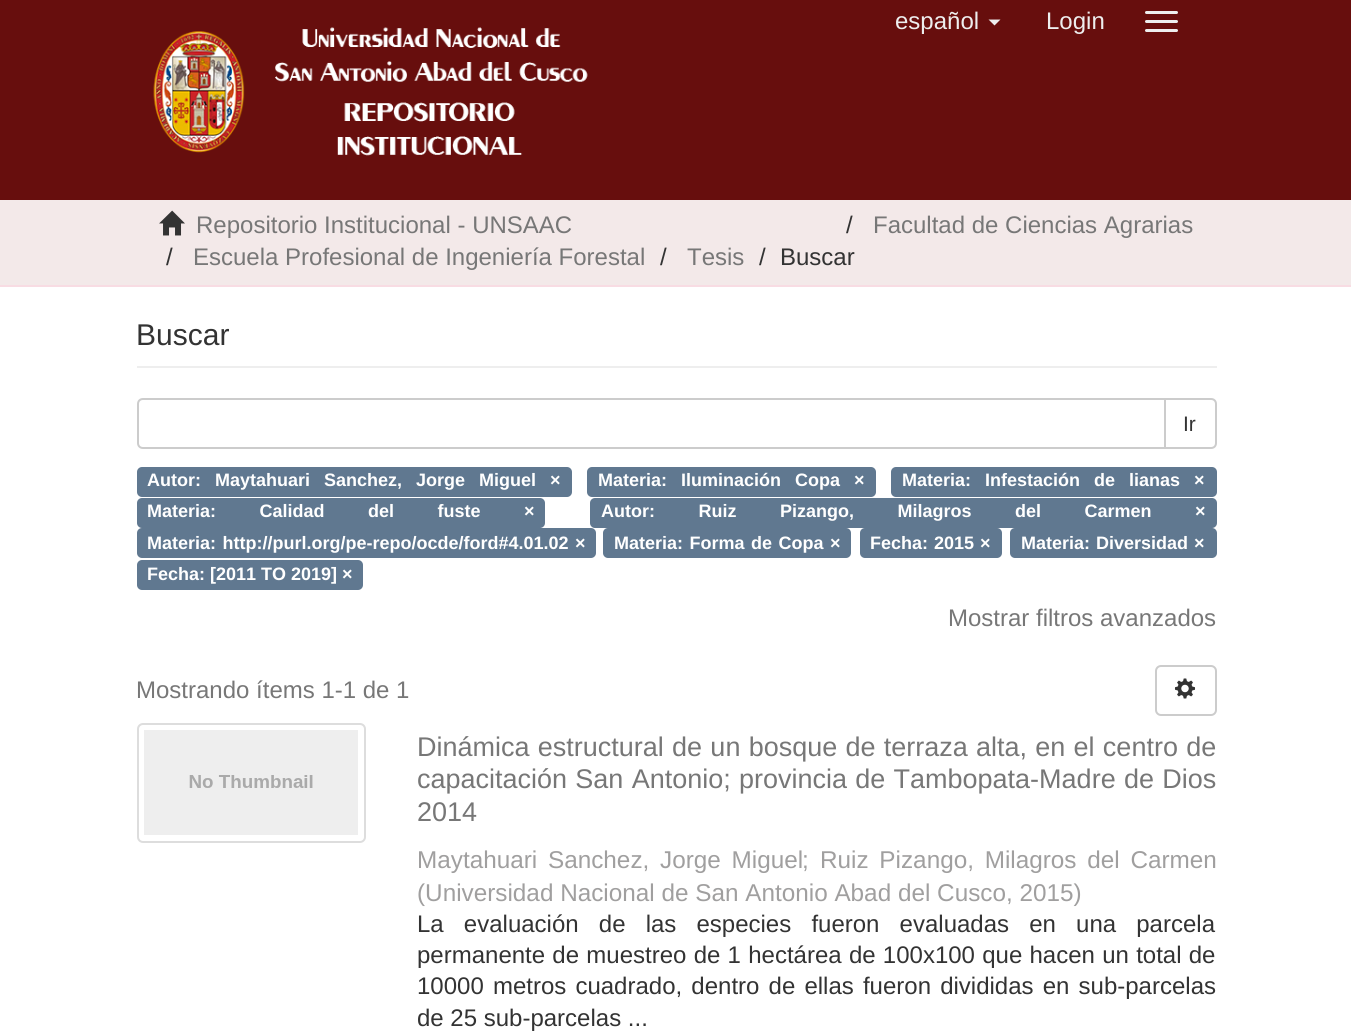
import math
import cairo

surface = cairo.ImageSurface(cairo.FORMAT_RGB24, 1351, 1033)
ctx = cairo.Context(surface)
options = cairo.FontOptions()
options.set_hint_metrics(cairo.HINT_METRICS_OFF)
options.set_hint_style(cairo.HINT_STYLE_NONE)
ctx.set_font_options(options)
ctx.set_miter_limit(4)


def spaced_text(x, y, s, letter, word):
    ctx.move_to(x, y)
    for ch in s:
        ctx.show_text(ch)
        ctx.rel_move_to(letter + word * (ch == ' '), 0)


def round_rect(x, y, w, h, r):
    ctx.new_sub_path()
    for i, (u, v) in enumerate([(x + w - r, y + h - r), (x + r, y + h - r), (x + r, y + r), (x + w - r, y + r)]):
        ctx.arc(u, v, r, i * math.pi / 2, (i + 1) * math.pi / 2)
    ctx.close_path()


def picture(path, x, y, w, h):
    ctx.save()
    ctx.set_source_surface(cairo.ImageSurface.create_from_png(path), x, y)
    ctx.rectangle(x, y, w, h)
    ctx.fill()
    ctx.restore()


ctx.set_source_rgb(1, 1, 1)
ctx.paint()
ctx.set_source_rgb(0.404, 0.055, 0.051)
ctx.rectangle(0, 0, 1351, 200)
ctx.fill()
ctx.select_font_face("Liberation Sans")
ctx.set_font_size(24)
ctx.set_source_rgb(0.933, 0.933, 0.933)
ctx.move_to(895, 29)
ctx.show_text("español")
ctx.new_path()
ctx.move_to(988.5, 19.5)
ctx.line_to(1000.5, 19.5)
ctx.line_to(994.5, 25.5)
ctx.close_path()
ctx.fill()
ctx.move_to(1046, 29)
ctx.show_text("Login")
round_rect(1145, 11, 33, 3, 1.5)
ctx.fill()
round_rect(1145, 20, 33, 3, 1.5)
ctx.fill()
round_rect(1145, 29, 33, 3, 1.5)
ctx.fill()
picture("img1.png", 153, 27, 435, 129)
ctx.set_source_rgb(0.953, 0.914, 0.914)
ctx.rectangle(0, 200, 1351, 85)
ctx.fill()
ctx.set_source_rgb(0.969, 0.863, 0.89)
ctx.rectangle(0, 285, 1351, 2)
ctx.fill()
picture("img2.png", 159, 210, 26, 26)
ctx.set_source_rgb(0.467, 0.467, 0.467)
ctx.move_to(196, 233)
ctx.show_text("Repositorio Institucional - UNSAAC")
ctx.set_source_rgb(0.2, 0.2, 0.2)
ctx.move_to(846, 233)
ctx.show_text("/")
ctx.set_source_rgb(0.467, 0.467, 0.467)
ctx.move_to(873, 233)
ctx.show_text("Facultad de Ciencias Agrarias")
ctx.set_source_rgb(0.2, 0.2, 0.2)
ctx.move_to(166, 265)
ctx.show_text("/")
ctx.set_source_rgb(0.467, 0.467, 0.467)
ctx.move_to(193, 265)
ctx.show_text("Escuela Profesional de Ingeniería Forestal")
ctx.set_source_rgb(0.2, 0.2, 0.2)
ctx.move_to(660, 265)
ctx.show_text("/")
ctx.set_source_rgb(0.467, 0.467, 0.467)
ctx.move_to(687, 265)
ctx.show_text("Tesis")
ctx.set_source_rgb(0.2, 0.2, 0.2)
ctx.move_to(759, 265)
ctx.show_text("/")
ctx.move_to(780, 265)
ctx.show_text("Buscar")
ctx.set_source_rgb(0.933, 0.933, 0.933)
ctx.rectangle(137, 366, 1080, 2)
ctx.fill()
ctx.set_font_size(30)
ctx.set_source_rgb(0.2, 0.2, 0.2)
ctx.move_to(136, 345)
ctx.show_text("Buscar")
ctx.new_path()
ctx.move_to(1165, 399)
ctx.line_to(1211, 399)
ctx.curve_to(1214, 399, 1216, 401, 1216, 404)
ctx.line_to(1216, 443)
ctx.curve_to(1216, 446, 1214, 448, 1211, 448)
ctx.line_to(1165, 448)
ctx.close_path()
ctx.set_source_rgb(0.8, 0.8, 0.8)
ctx.stroke()
ctx.set_source_rgb(1, 1, 1)
ctx.new_path()
ctx.move_to(143, 399)
ctx.line_to(1165, 399)
ctx.line_to(1165, 448)
ctx.line_to(143, 448)
ctx.curve_to(140, 448, 138, 446, 138, 443)
ctx.line_to(138, 404)
ctx.curve_to(138, 401, 140, 399, 143, 399)
ctx.close_path()
ctx.fill_preserve()
ctx.set_source_rgb(0.8, 0.8, 0.8)
ctx.stroke()
ctx.set_font_size(21)
ctx.set_source_rgb(0.2, 0.2, 0.2)
ctx.move_to(1183, 431)
ctx.show_text("Ir")
ctx.set_source_rgb(0.376, 0.471, 0.565)
round_rect(137, 467, 435, 30, 5)
ctx.fill()
ctx.select_font_face("Liberation Sans", cairo.FONT_SLANT_NORMAL, cairo.FONT_WEIGHT_BOLD)
ctx.set_font_size(18)
ctx.set_source_rgb(1, 1, 1)
spaced_text(147, 486, "Autor: Maytahuari Sanchez, Jorge Miguel ×", 0, 9)
ctx.set_source_rgb(0.376, 0.471, 0.565)
round_rect(587, 467, 289, 30, 5)
ctx.fill()
ctx.set_source_rgb(1, 1, 1)
spaced_text(598, 486, "Materia: Iluminación Copa ×", 0, 9)
ctx.set_source_rgb(0.376, 0.471, 0.565)
round_rect(891, 467, 326, 30, 5)
ctx.fill()
ctx.set_source_rgb(1, 1, 1)
spaced_text(902, 486, "Materia: Infestación de lianas ×", 0, 9)
ctx.set_source_rgb(0.376, 0.471, 0.565)
round_rect(137, 498, 408, 30, 5)
ctx.fill()
ctx.set_source_rgb(1, 1, 1)
spaced_text(147, 517, "Materia: Calidad del fuste ×", 0, 38.5)
ctx.set_source_rgb(0.376, 0.471, 0.565)
round_rect(590, 498, 627, 30, 5)
ctx.fill()
ctx.set_source_rgb(1, 1, 1)
spaced_text(601, 517, "Autor: Ruiz Pizango, Milagros del Carmen ×", 0, 38.5)
ctx.set_source_rgb(0.376, 0.471, 0.565)
round_rect(137, 528, 459, 30, 5)
ctx.fill()
ctx.set_source_rgb(1, 1, 1)
spaced_text(147, 549, "Materia: http://purl.org/pe-repo/ocde/ford#4.01.02 ×", 0, 1.5)
ctx.set_source_rgb(0.376, 0.471, 0.565)
round_rect(603, 528, 248, 30, 5)
ctx.fill()
ctx.set_source_rgb(1, 1, 1)
spaced_text(614, 549, "Materia: Forma de Copa ×", 0, 1.5)
ctx.set_source_rgb(0.376, 0.471, 0.565)
round_rect(860, 528, 142, 30, 5)
ctx.fill()
ctx.set_source_rgb(1, 1, 1)
spaced_text(870, 549, "Fecha: 2015 ×", 0, 1)
ctx.set_source_rgb(0.376, 0.471, 0.565)
round_rect(1010, 528, 207, 30, 5)
ctx.fill()
ctx.set_source_rgb(1, 1, 1)
spaced_text(1021, 549, "Materia: Diversidad ×", 0, 1)
ctx.set_source_rgb(0.376, 0.471, 0.565)
round_rect(137, 560, 226, 30, 5)
ctx.fill()
ctx.set_source_rgb(1, 1, 1)
ctx.move_to(147, 580)
ctx.show_text("Fecha: [2011 TO 2019] ×")
ctx.select_font_face("Liberation Sans")
ctx.set_font_size(24)
ctx.set_source_rgb(0.467, 0.467, 0.467)
ctx.move_to(948, 626)
ctx.show_text("Mostrar filtros avanzados")
ctx.move_to(136, 698)
ctx.show_text("Mostrando ítems 1-1 de 1")
round_rect(1156, 666, 60, 49, 5)
ctx.set_source_rgb(0.8, 0.8, 0.8)
ctx.stroke()
picture("img3.png", 1174, 678, 22, 21)
round_rect(138, 724, 227, 118, 5)
ctx.set_source_rgb(0.867, 0.867, 0.867)
ctx.stroke()
picture("img4.png", 144, 730, 214, 105)
ctx.set_font_size(27)
ctx.set_source_rgb(0.467, 0.467, 0.467)
spaced_text(417, 756, "Dinámica estructural de un bosque de terraza alta, en el centro de", 0, 0.75)
spaced_text(417, 788, "capacitación San Antonio; provincia de Tambopata-Madre de Dios", 0, 0.75)
ctx.move_to(417, 821)
ctx.show_text("2014")
ctx.set_font_size(24.3)
ctx.set_source_rgb(0.627, 0.624, 0.624)
spaced_text(417, 868, "Maytahuari Sanchez, Jorge Miguel", 0, 4)
ctx.move_to(802, 868)
ctx.show_text(";")
spaced_text(820, 868, "Ruiz Pizango, Milagros del Carmen", 0, 4)
ctx.move_to(417, 901)
ctx.show_text("(Universidad Nacional de San Antonio Abad del Cusco")
ctx.move_to(1006, 901)
ctx.show_text(", 2015)")
ctx.set_font_size(24)
ctx.set_source_rgb(0.2, 0.2, 0.2)
spaced_text(417, 932, "La evaluación de las especies fueron evaluadas en una parcela", 0, 13.5)
spaced_text(417, 963, "permanente de muestreo de 1 hectárea de 100x100 que hacen un total de", 0, 0.6)
spaced_text(417, 994, "10000 metros cuadrado, dentro de ellas fueron divididas en sub-parcelas", 0, 2.5)
ctx.move_to(417, 1026)
ctx.show_text("de 25 sub-parcelas ...")
surface.write_to_png("page.png")
